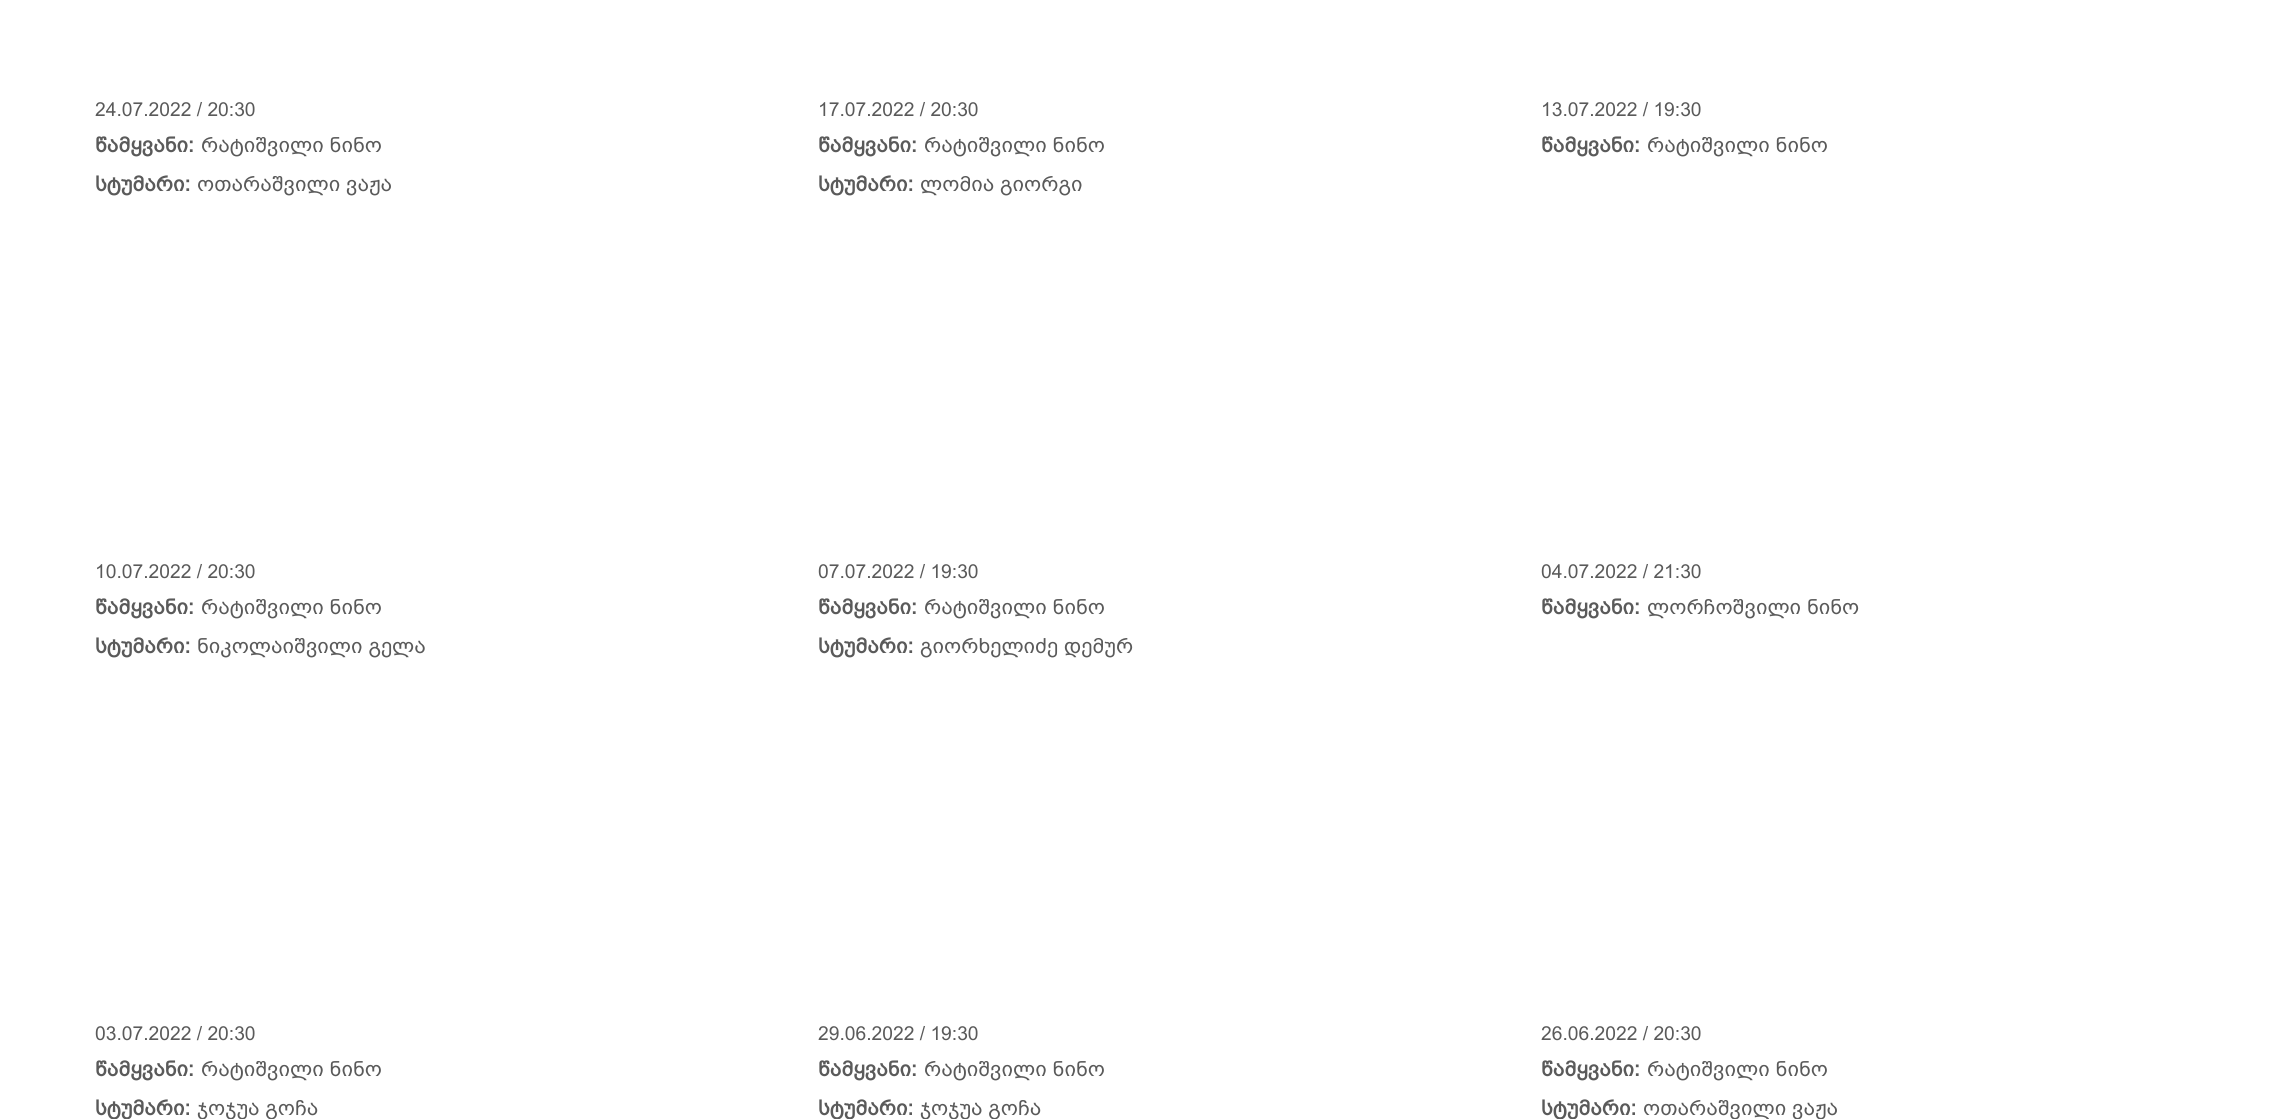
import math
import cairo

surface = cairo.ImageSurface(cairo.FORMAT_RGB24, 2290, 1119)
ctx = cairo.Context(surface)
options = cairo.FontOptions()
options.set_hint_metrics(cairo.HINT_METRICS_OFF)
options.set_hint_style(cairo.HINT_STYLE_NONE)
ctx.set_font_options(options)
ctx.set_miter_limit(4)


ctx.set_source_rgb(1, 1, 1)
ctx.paint()
ctx.select_font_face("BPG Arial")
ctx.set_font_size(19.25)
ctx.set_source_rgb(0.353, 0.353, 0.353)
ctx.move_to(95, 116)
ctx.show_text("24.07.2022 / 20:30")
ctx.select_font_face("BPG Arial", cairo.FONT_SLANT_NORMAL, cairo.FONT_WEIGHT_BOLD)
ctx.set_font_size(21)
ctx.move_to(95, 152)
ctx.show_text("წამყვანი:")
ctx.select_font_face("BPG Arial")
ctx.move_to(201, 152)
ctx.show_text("რატიშვილი ნინო")
ctx.select_font_face("BPG Arial", cairo.FONT_SLANT_NORMAL, cairo.FONT_WEIGHT_BOLD)
ctx.move_to(95, 191)
ctx.show_text("სტუმარი:")
ctx.select_font_face("BPG Arial")
ctx.move_to(197, 191)
ctx.show_text("ოთარაშვილი ვაჟა")
ctx.set_font_size(19.25)
ctx.move_to(818, 116)
ctx.show_text("17.07.2022 / 20:30")
ctx.select_font_face("BPG Arial", cairo.FONT_SLANT_NORMAL, cairo.FONT_WEIGHT_BOLD)
ctx.set_font_size(21)
ctx.move_to(818, 152)
ctx.show_text("წამყვანი:")
ctx.select_font_face("BPG Arial")
ctx.move_to(924, 152)
ctx.show_text("რატიშვილი ნინო")
ctx.select_font_face("BPG Arial", cairo.FONT_SLANT_NORMAL, cairo.FONT_WEIGHT_BOLD)
ctx.move_to(818, 191)
ctx.show_text("სტუმარი:")
ctx.select_font_face("BPG Arial")
ctx.move_to(920, 191)
ctx.show_text("ლომია გიორგი")
ctx.set_font_size(19.25)
ctx.move_to(1541, 116)
ctx.show_text("13.07.2022 / 19:30")
ctx.select_font_face("BPG Arial", cairo.FONT_SLANT_NORMAL, cairo.FONT_WEIGHT_BOLD)
ctx.set_font_size(21)
ctx.move_to(1541, 152)
ctx.show_text("წამყვანი:")
ctx.select_font_face("BPG Arial")
ctx.move_to(1647, 152)
ctx.show_text("რატიშვილი ნინო")
ctx.set_font_size(19.25)
ctx.move_to(95, 578)
ctx.show_text("10.07.2022 / 20:30")
ctx.select_font_face("BPG Arial", cairo.FONT_SLANT_NORMAL, cairo.FONT_WEIGHT_BOLD)
ctx.set_font_size(21)
ctx.move_to(95, 614)
ctx.show_text("წამყვანი:")
ctx.select_font_face("BPG Arial")
ctx.move_to(201, 614)
ctx.show_text("რატიშვილი ნინო")
ctx.select_font_face("BPG Arial", cairo.FONT_SLANT_NORMAL, cairo.FONT_WEIGHT_BOLD)
ctx.move_to(95, 653)
ctx.show_text("სტუმარი:")
ctx.select_font_face("BPG Arial")
ctx.move_to(197, 653)
ctx.show_text("ნიკოლაიშვილი გელა")
ctx.set_font_size(19.25)
ctx.move_to(818, 578)
ctx.show_text("07.07.2022 / 19:30")
ctx.select_font_face("BPG Arial", cairo.FONT_SLANT_NORMAL, cairo.FONT_WEIGHT_BOLD)
ctx.set_font_size(21)
ctx.move_to(818, 614)
ctx.show_text("წამყვანი:")
ctx.select_font_face("BPG Arial")
ctx.move_to(924, 614)
ctx.show_text("რატიშვილი ნინო")
ctx.select_font_face("BPG Arial", cairo.FONT_SLANT_NORMAL, cairo.FONT_WEIGHT_BOLD)
ctx.move_to(818, 653)
ctx.show_text("სტუმარი:")
ctx.select_font_face("BPG Arial")
ctx.move_to(920, 653)
ctx.show_text("გიორხელიძე დემურ")
ctx.set_font_size(19.25)
ctx.move_to(1541, 578)
ctx.show_text("04.07.2022 / 21:30")
ctx.select_font_face("BPG Arial", cairo.FONT_SLANT_NORMAL, cairo.FONT_WEIGHT_BOLD)
ctx.set_font_size(21)
ctx.move_to(1541, 614)
ctx.show_text("წამყვანი:")
ctx.select_font_face("BPG Arial")
ctx.move_to(1647, 614)
ctx.show_text("ლორჩოშვილი ნინო")
ctx.set_font_size(19.25)
ctx.move_to(95, 1040)
ctx.show_text("03.07.2022 / 20:30")
ctx.select_font_face("BPG Arial", cairo.FONT_SLANT_NORMAL, cairo.FONT_WEIGHT_BOLD)
ctx.set_font_size(21)
ctx.move_to(95, 1076)
ctx.show_text("წამყვანი:")
ctx.select_font_face("BPG Arial")
ctx.move_to(201, 1076)
ctx.show_text("რატიშვილი ნინო")
ctx.select_font_face("BPG Arial", cairo.FONT_SLANT_NORMAL, cairo.FONT_WEIGHT_BOLD)
ctx.move_to(95, 1115)
ctx.show_text("სტუმარი:")
ctx.select_font_face("BPG Arial")
ctx.move_to(197, 1115)
ctx.show_text("ჯოჯუა გოჩა")
ctx.set_font_size(19.25)
ctx.move_to(818, 1040)
ctx.show_text("29.06.2022 / 19:30")
ctx.select_font_face("BPG Arial", cairo.FONT_SLANT_NORMAL, cairo.FONT_WEIGHT_BOLD)
ctx.set_font_size(21)
ctx.move_to(818, 1076)
ctx.show_text("წამყვანი:")
ctx.select_font_face("BPG Arial")
ctx.move_to(924, 1076)
ctx.show_text("რატიშვილი ნინო")
ctx.select_font_face("BPG Arial", cairo.FONT_SLANT_NORMAL, cairo.FONT_WEIGHT_BOLD)
ctx.move_to(818, 1115)
ctx.show_text("სტუმარი:")
ctx.select_font_face("BPG Arial")
ctx.move_to(920, 1115)
ctx.show_text("ჯოჯუა გოჩა")
ctx.set_font_size(19.25)
ctx.move_to(1541, 1040)
ctx.show_text("26.06.2022 / 20:30")
ctx.select_font_face("BPG Arial", cairo.FONT_SLANT_NORMAL, cairo.FONT_WEIGHT_BOLD)
ctx.set_font_size(21)
ctx.move_to(1541, 1076)
ctx.show_text("წამყვანი:")
ctx.select_font_face("BPG Arial")
ctx.move_to(1647, 1076)
ctx.show_text("რატიშვილი ნინო")
ctx.select_font_face("BPG Arial", cairo.FONT_SLANT_NORMAL, cairo.FONT_WEIGHT_BOLD)
ctx.move_to(1541, 1115)
ctx.show_text("სტუმარი:")
ctx.select_font_face("BPG Arial")
ctx.move_to(1643, 1115)
ctx.show_text("ოთარაშვილი ვაჟა")
surface.write_to_png("page.png")
